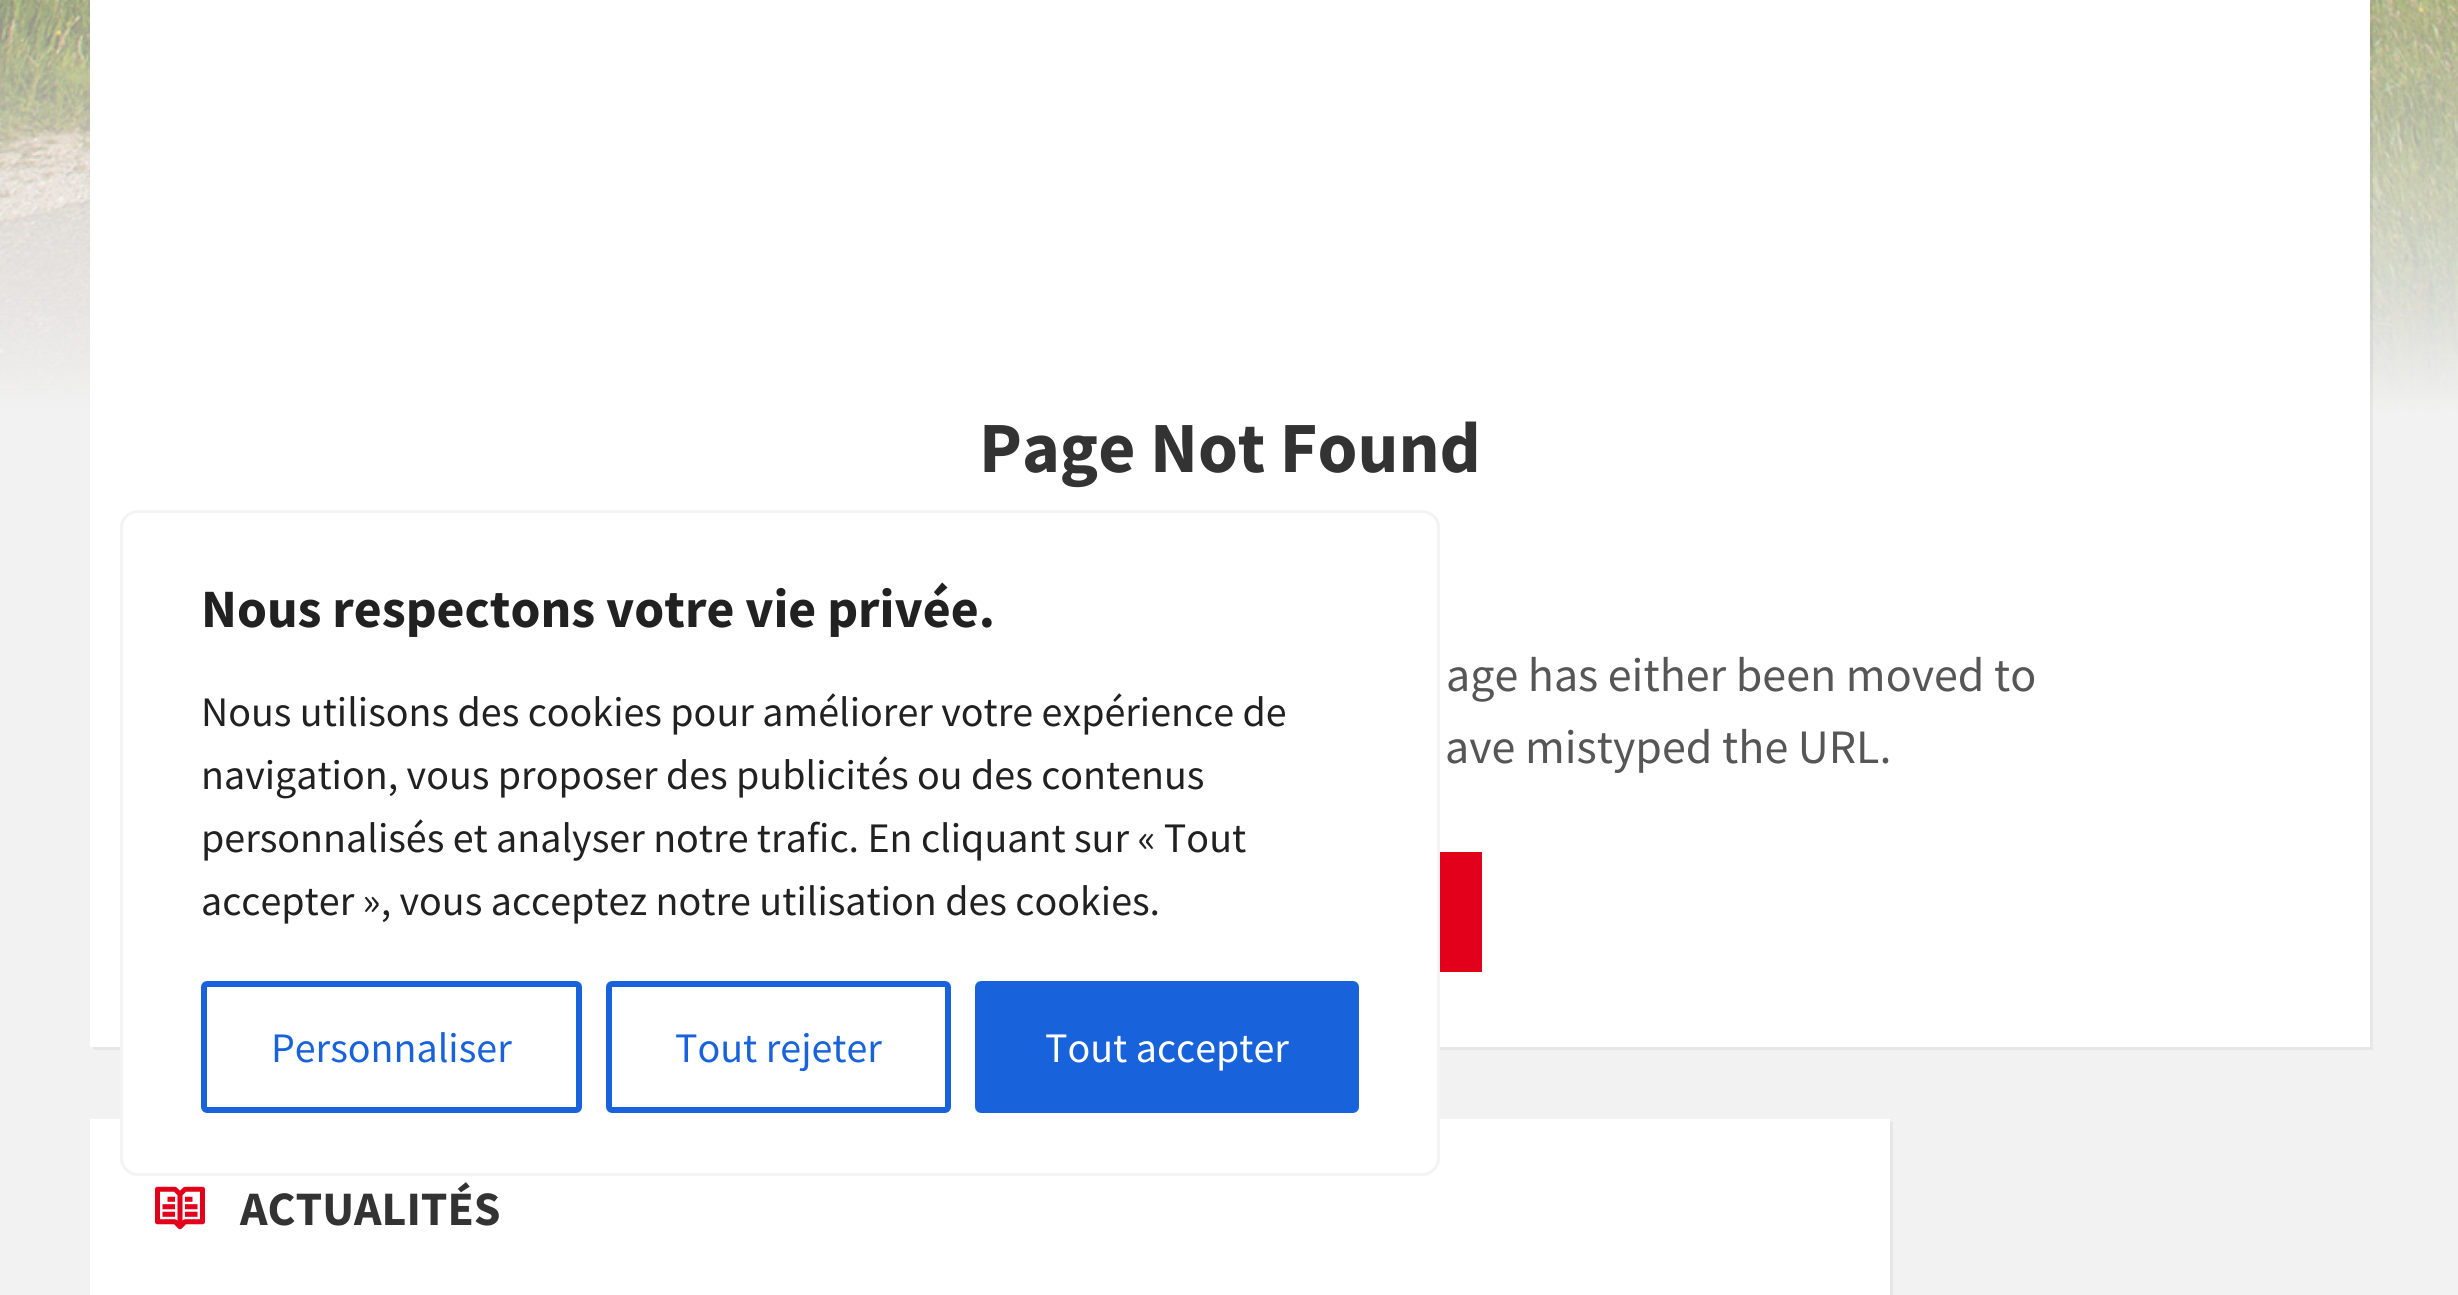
import math
import cairo

surface = cairo.ImageSurface(cairo.FORMAT_RGB24, 2458, 1295)
ctx = cairo.Context(surface)
options = cairo.FontOptions()
options.set_hint_metrics(cairo.HINT_METRICS_OFF)
options.set_hint_style(cairo.HINT_STYLE_NONE)
ctx.set_font_options(options)
ctx.set_miter_limit(4)


def round_rect(x, y, w, h, r):
    ctx.new_sub_path()
    for i, (u, v) in enumerate([(x + w - r, y + h - r), (x + r, y + h - r), (x + r, y + r), (x + w - r, y + r)]):
        ctx.arc(u, v, r, i * math.pi / 2, (i + 1) * math.pi / 2)
    ctx.close_path()


def shadow(x, y, w, h, r, blur, alpha):
    ctx.push_group_with_content(cairo.CONTENT_ALPHA)
    ctx.set_operator(cairo.OPERATOR_SOURCE)
    for i in range(15, -16, -2):
        e = blur * i / 6
        if min(w, h) + 2 * e > 0:
            ctx.set_source_rgba(0, 0, 0, alpha * math.erfc((i - 1) / 8.5) / 2)
            round_rect(x - e, y - e, w + 2 * e, h + 2 * e, max(0, min(r + e + blur * .6, min(w, h) / 2 + e)))
            ctx.fill()
    ctx.mask(ctx.pop_group())


def picture(path, x, y, w, h):
    ctx.save()
    ctx.set_source_surface(cairo.ImageSurface.create_from_png(path), x, y)
    ctx.rectangle(x, y, w, h)
    ctx.fill()
    ctx.restore()


ctx.set_source_rgb(0.949, 0.949, 0.949)
ctx.paint()
picture("img1.png", 0, 0, 2458, 414)
ctx.set_source_rgba(0, 0, 0, 0.05)
ctx.new_path()
ctx.move_to(93, 1047)
ctx.line_to(93, 1050)
ctx.line_to(2373, 1050)
ctx.line_to(2373, -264)
ctx.line_to(2370, -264)
ctx.line_to(2370, 1047)
ctx.close_path()
ctx.fill()
ctx.set_source_rgb(1, 1, 1)
ctx.rectangle(90, 0, 2280, 1047)
ctx.fill()
ctx.select_font_face("Source Sans Pro", cairo.FONT_SLANT_NORMAL, cairo.FONT_WEIGHT_BOLD)
ctx.set_font_size(72)
ctx.set_source_rgb(0.2, 0.2, 0.2)
ctx.move_to(979, 472)
ctx.show_text("Page Not Found")
ctx.select_font_face("Source Sans Pro")
ctx.set_font_size(48)
ctx.set_source_rgb(0.337, 0.337, 0.337)
ctx.move_to(1446, 691)
ctx.show_text("age has either been moved to")
ctx.move_to(1445, 763)
ctx.show_text("ave mistyped the URL.")
ctx.set_source_rgb(0.89, 0, 0.106)
ctx.rectangle(1440, 852, 42, 120)
ctx.fill()
ctx.set_source_rgb(0.902, 0.902, 0.902)
ctx.new_path()
ctx.move_to(93, 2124)
ctx.line_to(93, 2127)
ctx.line_to(1893, 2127)
ctx.line_to(1893, 1122)
ctx.line_to(1890, 1122)
ctx.line_to(1890, 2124)
ctx.close_path()
ctx.fill()
ctx.set_source_rgb(1, 1, 1)
ctx.rectangle(90, 1119, 1800, 176)
ctx.fill()
picture("img2.png", 155, 1186, 50, 44)
ctx.select_font_face("Source Sans Pro", cairo.FONT_SLANT_NORMAL, cairo.FONT_WEIGHT_BOLD)
ctx.set_source_rgb(0.2, 0.2, 0.2)
ctx.move_to(240, 1225)
ctx.show_text("ACTUALITÉS")
ctx.save()
round_rect(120, 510, 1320, 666, 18)
ctx.clip()
ctx.set_source_rgb(0.675, 0.671, 0.671)
shadow(120, 507, 1320, 666, 18, 15, 0.3)
ctx.restore()
ctx.set_source_rgb(1, 1, 1)
round_rect(121.5, 511.5, 1317, 663, 16.5)
ctx.fill_preserve()
ctx.set_source_rgb(0.957, 0.957, 0.957)
ctx.set_line_width(3)
ctx.stroke()
ctx.set_font_size(54)
ctx.set_source_rgb(0.129, 0.129, 0.129)
ctx.move_to(201, 627)
ctx.show_text("Nous respectons votre vie privée.")
ctx.select_font_face("Source Sans Pro")
ctx.set_font_size(42)
ctx.move_to(201, 726)
ctx.show_text("Nous utilisons des cookies pour améliorer votre expérience de")
ctx.move_to(201, 789)
ctx.show_text("navigation, vous proposer des publicités ou des contenus")
ctx.move_to(201, 852)
ctx.show_text("personnalisés et analyser notre trafic. En cliquant sur « Tout")
ctx.move_to(201, 915)
ctx.show_text("accepter », vous acceptez notre utilisation des cookies.")
round_rect(204, 984, 375, 126, 3)
ctx.set_source_rgb(0.094, 0.388, 0.863)
ctx.set_line_width(6)
ctx.stroke()
ctx.move_to(271, 1062)
ctx.show_text("Personnaliser")
round_rect(609, 984, 339, 126, 3)
ctx.stroke()
ctx.move_to(675, 1062)
ctx.show_text("Tout rejeter")
round_rect(978, 984, 378, 126, 3)
ctx.fill_preserve()
ctx.stroke()
ctx.set_source_rgb(1, 1, 1)
ctx.move_to(1045, 1062)
ctx.show_text("Tout accepter")
surface.write_to_png("page.png")
